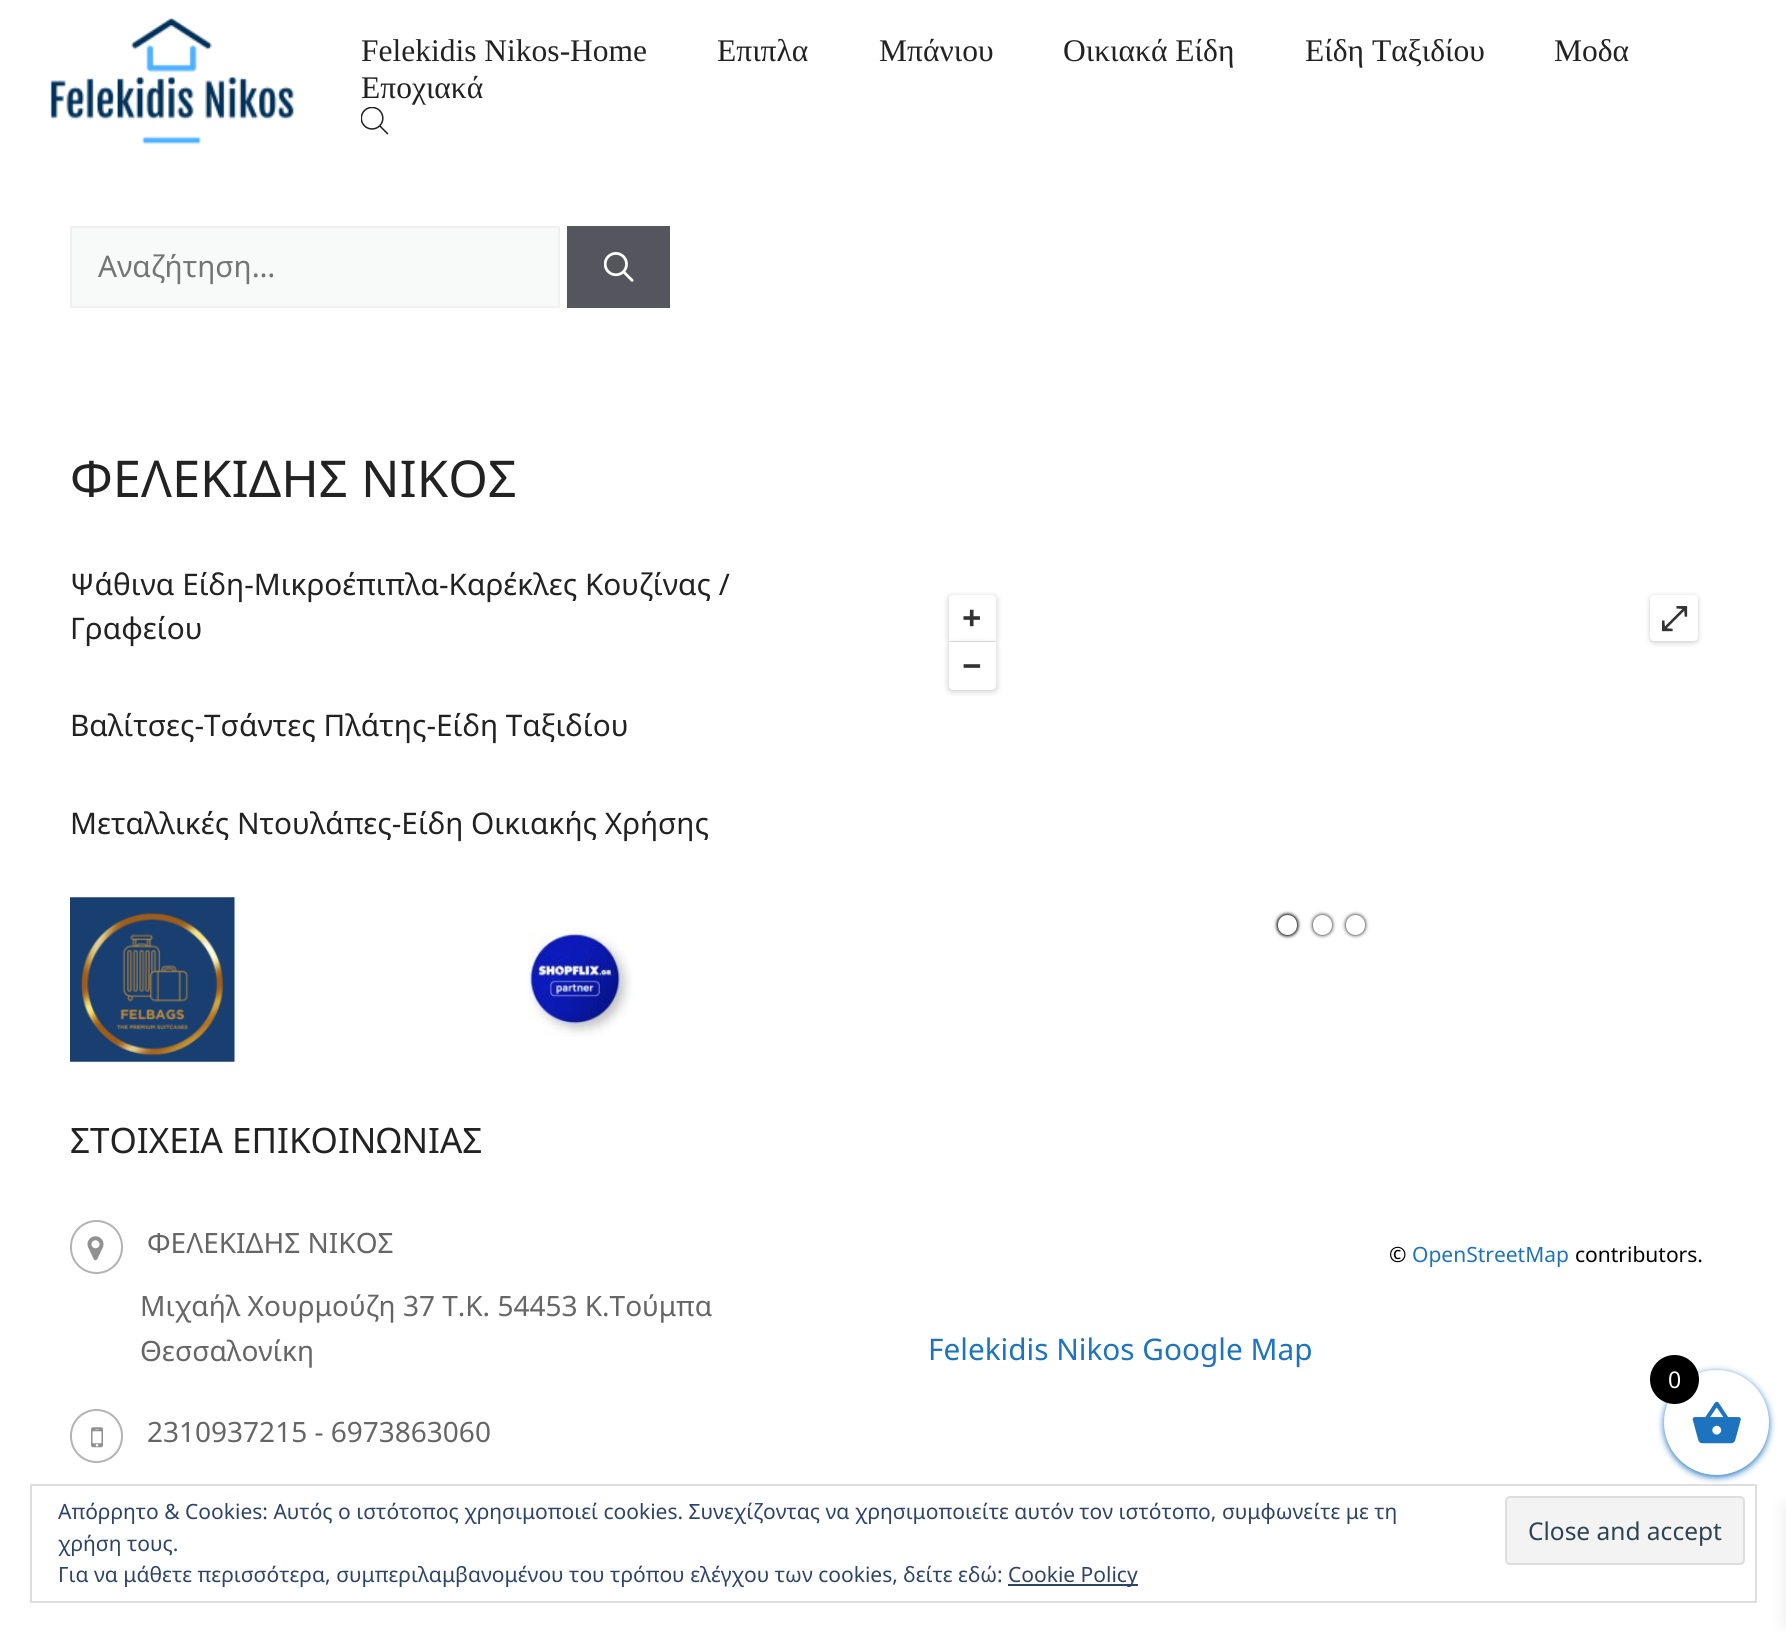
import math
import cairo

surface = cairo.ImageSurface(cairo.FORMAT_RGB24, 1786, 1632)
ctx = cairo.Context(surface)
options = cairo.FontOptions()
options.set_hint_metrics(cairo.HINT_METRICS_OFF)
options.set_hint_style(cairo.HINT_STYLE_NONE)
ctx.set_font_options(options)
ctx.set_miter_limit(4)


def round_rect(x, y, w, h, r):
    ctx.new_sub_path()
    for i, (u, v) in enumerate([(x + w - r, y + h - r), (x + r, y + h - r), (x + r, y + r), (x + w - r, y + r)]):
        ctx.arc(u, v, r, i * math.pi / 2, (i + 1) * math.pi / 2)
    ctx.close_path()


def shadow(x, y, w, h, r, blur, alpha):
    ctx.push_group_with_content(cairo.CONTENT_ALPHA)
    ctx.set_operator(cairo.OPERATOR_SOURCE)
    for i in range(15, -16, -2):
        e = blur * i / 6
        if min(w, h) + 2 * e > 0:
            ctx.set_source_rgba(0, 0, 0, alpha * math.erfc((i - 1) / 8.5) / 2)
            round_rect(x - e, y - e, w + 2 * e, h + 2 * e, max(0, min(r + e + blur * .6, min(w, h) / 2 + e)))
            ctx.fill()
    ctx.mask(ctx.pop_group())


def picture(path, x, y, w, h):
    ctx.save()
    ctx.set_source_surface(cairo.ImageSurface.create_from_png(path), x, y)
    ctx.rectangle(x, y, w, h)
    ctx.fill()
    ctx.restore()


ctx.set_source_rgb(1, 1, 1)
ctx.paint()
picture("img1.png", 49, 17, 245, 128)
ctx.select_font_face("Liberation Serif")
ctx.set_font_size(31.5)
ctx.set_source_rgb(0.133, 0.133, 0.133)
ctx.move_to(361, 61)
ctx.show_text("Felekidis Nikos-Home")
ctx.move_to(717, 61)
ctx.show_text("Επιπλα")
ctx.move_to(879, 61)
ctx.show_text("Μπάνιου")
ctx.move_to(1063, 61)
ctx.show_text("Οικιακά Είδη")
ctx.move_to(1305, 61)
ctx.show_text("Είδη Ταξιδίου")
ctx.move_to(1554, 61)
ctx.show_text("Μοδα")
ctx.move_to(361, 98)
ctx.show_text("Eποχιακά")
picture("img2.png", 361, 107, 28, 28)
ctx.set_source_rgb(0.969, 0.973, 0.976)
ctx.rectangle(71, 227, 488, 80)
ctx.fill_preserve()
ctx.set_source_rgb(0.941, 0.941, 0.941)
ctx.stroke()
ctx.select_font_face("Noto Sans")
ctx.set_font_size(29.75)
ctx.set_source_rgb(0.459, 0.459, 0.459)
ctx.move_to(98, 277)
ctx.show_text("Αναζήτηση…")
ctx.set_source_rgb(0.333, 0.333, 0.369)
ctx.rectangle(567, 226, 103, 82)
ctx.fill()
picture("img3.png", 604, 252, 30, 30)
ctx.set_font_size(50.75)
ctx.set_source_rgb(0.133, 0.133, 0.133)
ctx.move_to(70, 497)
ctx.show_text("ΦΕΛΕΚΙΔΗΣ ΝΙΚΟΣ")
ctx.set_font_size(29.75)
ctx.move_to(70, 595)
ctx.show_text("Ψάθινα Είδη-Μικροέπιπλα-Καρέκλες Κουζίνας /")
ctx.move_to(70, 639)
ctx.show_text("Γραφείου")
ctx.move_to(70, 736)
ctx.show_text("Βαλίτσες-Τσάντες Πλάτης-Είδη Ταξιδίου")
ctx.move_to(70, 834)
ctx.show_text("Μεταλλικές Ντουλάπες-Είδη Οικιακής Χρήσης")
picture("img4.png", 70, 897, 165, 165)
picture("img5.png", 527, 931, 106, 106)
ctx.set_font_size(35)
ctx.move_to(70, 1153)
ctx.show_text("ΣΤΟΙΧΕΙΑ ΕΠΙΚΟΙΝΩΝΙΑΣ")
round_rect(71, 1221, 51, 52, 25.5)
ctx.set_source_rgb(0.702, 0.702, 0.702)
ctx.stroke()
picture("img6.png", 87, 1236, 17, 25)
ctx.set_font_size(28)
ctx.set_source_rgb(0.4, 0.4, 0.4)
ctx.move_to(147, 1253)
ctx.show_text("ΦΕΛΕΚΙΔΗΣ ΝΙΚΟΣ")
ctx.move_to(140, 1316)
ctx.show_text("Μιχαήλ Χουρμούζη 37 Τ.Κ. 54453 Κ.Τούμπα")
ctx.move_to(140, 1361)
ctx.show_text("Θεσσαλονίκη")
round_rect(71, 1410, 51, 52, 25.5)
ctx.set_source_rgb(0.702, 0.702, 0.702)
ctx.stroke()
picture("img7.png", 91, 1427, 12, 21)
ctx.set_source_rgb(0.4, 0.4, 0.4)
ctx.move_to(147, 1442)
ctx.show_text("2310937215 - 6973863060")
ctx.set_source_rgb(0.259, 0.259, 0.259)
shadow(947, 595, 51, 49, 5, 2.5, 0.16)
shadow(949, 597, 47, 45, 4, 1, 0.08)
ctx.set_source_rgb(1, 1, 1)
ctx.new_path()
ctx.move_to(953, 595)
ctx.line_to(992, 595)
ctx.curve_to(994, 595, 996, 597, 996, 599)
ctx.line_to(996, 641)
ctx.line_to(949, 641)
ctx.line_to(949, 599)
ctx.curve_to(949, 597, 951, 595, 953, 595)
ctx.close_path()
ctx.fill()
ctx.select_font_face("Noto Sans", cairo.FONT_SLANT_NORMAL, cairo.FONT_WEIGHT_BOLD)
ctx.set_font_size(34)
ctx.set_source_rgb(0.2, 0.2, 0.2)
ctx.move_to(962, 630)
ctx.show_text("+")
ctx.set_source_rgb(0.259, 0.259, 0.259)
shadow(947, 642, 51, 51, 5, 2.5, 0.16)
shadow(949, 644, 47, 47, 4, 1, 0.08)
ctx.set_source_rgb(1, 1, 1)
ctx.new_path()
ctx.move_to(949, 642)
ctx.line_to(996, 642)
ctx.line_to(996, 686)
ctx.curve_to(996, 688, 994, 690, 992, 690)
ctx.line_to(953, 690)
ctx.curve_to(951, 690, 949, 688, 949, 686)
ctx.close_path()
ctx.fill()
ctx.set_source_rgb(0.2, 0.2, 0.2)
ctx.move_to(962, 678)
ctx.show_text("−")
ctx.set_source_rgb(0.259, 0.259, 0.259)
shadow(1649, 595, 50, 49, 5, 2.5, 0.16)
shadow(1650, 597, 48, 45, 4, 1, 0.08)
ctx.set_source_rgb(1, 1, 1)
round_rect(1650, 595, 48, 46, 4)
ctx.fill()
ctx.select_font_face("FreeSerif", cairo.FONT_SLANT_NORMAL, cairo.FONT_WEIGHT_BOLD)
ctx.set_source_rgb(0.2, 0.2, 0.2)
ctx.move_to(1660, 630)
ctx.show_text("⤢")
ctx.select_font_face("Noto Sans")
ctx.set_font_size(21)
ctx.set_source_rgb(0, 0, 0)
ctx.move_to(1389, 1262)
ctx.show_text("©")
ctx.set_source_rgb(0.118, 0.451, 0.745)
ctx.move_to(1412, 1262)
ctx.show_text("OpenStreetMap")
ctx.set_source_rgb(0, 0, 0)
ctx.move_to(1575, 1262)
ctx.show_text("contributors.")
ctx.set_source_rgb(0, 0, 0)
shadow(1278, 915, 19, 20, 9.5, 2, 1)
shadow(1278, 915, 19, 20, 9.5, 2, 1)
ctx.set_source_rgb(1, 1, 1)
round_rect(1278, 915, 19, 20, 9.5)
ctx.fill()
ctx.set_source_rgb(0, 0, 0)
shadow(1313, 915, 19, 20, 9.5, 2, 1)
ctx.set_source_rgb(1, 1, 1)
round_rect(1313, 915, 19, 20, 9.5)
ctx.fill()
ctx.set_source_rgb(0, 0, 0)
shadow(1346, 915, 19, 20, 9.5, 2, 1)
ctx.set_source_rgb(1, 1, 1)
round_rect(1346, 915, 19, 20, 9.5)
ctx.fill()
ctx.set_font_size(29.75)
ctx.set_source_rgb(0.118, 0.451, 0.745)
ctx.move_to(928, 1360)
ctx.show_text("Felekidis Nikos Google Map")
ctx.rectangle(31, 1485, 1725, 117)
ctx.set_source_rgb(0.871, 0.871, 0.871)
ctx.stroke()
ctx.set_source_rgb(0.118, 0.451, 0.745)
shadow(1664, 1372, 105, 105, 52.5, 3.5, 1)
ctx.set_source_rgb(1, 1, 1)
ctx.arc(1716.5, 1422.5, 52.5, 0, 2 * math.pi)
ctx.fill()
picture("img8.png", 1692, 1401, 49, 43)
ctx.set_source_rgb(0, 0, 0)
ctx.arc(1674.5, 1379.5, 24.5, 0, 2 * math.pi)
ctx.fill()
ctx.set_font_size(23)
ctx.set_source_rgb(1, 1, 1)
ctx.move_to(1668, 1388)
ctx.show_text("0")
ctx.set_source_rgb(0, 0, 0)
shadow(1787, 1507, 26, 117, 0, 9, 0.1)
ctx.set_font_size(21)
ctx.set_source_rgb(0.18, 0.267, 0.404)
ctx.move_to(58, 1519)
ctx.show_text("Απόρρητο & Cookies: Αυτός ο ιστότοπος χρησιμοποιεί cookies. Συνεχίζοντας να χρησιμοποιείτε αυτόν τον ιστότοπο, συμφωνείτε με τη")
ctx.move_to(58, 1551)
ctx.show_text("χρήση τους.")
ctx.set_source_rgb(0.953, 0.953, 0.953)
round_rect(1506, 1497, 238, 67, 4)
ctx.fill_preserve()
ctx.set_source_rgb(0.871, 0.871, 0.871)
ctx.stroke()
ctx.set_font_size(24.5)
ctx.set_source_rgb(0.18, 0.267, 0.325)
ctx.move_to(1528, 1540)
ctx.show_text("Close and accept")
ctx.set_font_size(21)
ctx.set_source_rgb(0.18, 0.267, 0.404)
ctx.move_to(58, 1582)
ctx.show_text("Για να μάθετε περισσότερα, συμπεριλαμβανομένου του τρόπου ελέγχου των cookies, δείτε εδώ:")
ctx.rectangle(1008, 1584, 130, 2)
ctx.fill()
ctx.move_to(1008, 1582)
ctx.show_text("Cookie Policy")
surface.write_to_png("page.png")
